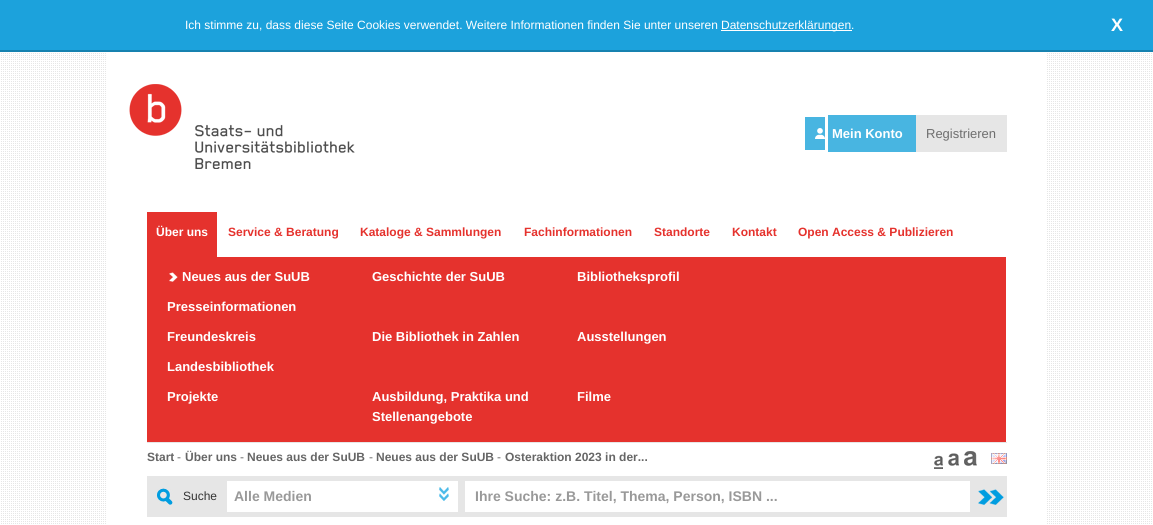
import math
import cairo

surface = cairo.ImageSurface(cairo.FORMAT_RGB24, 1153, 525)
ctx = cairo.Context(surface)
options = cairo.FontOptions()
options.set_hint_metrics(cairo.HINT_METRICS_OFF)
options.set_hint_style(cairo.HINT_STYLE_NONE)
ctx.set_font_options(options)
ctx.set_miter_limit(4)


def picture(path, x, y, w, h):
    ctx.save()
    ctx.set_source_surface(cairo.ImageSurface.create_from_png(path), x, y)
    ctx.rectangle(x, y, w, h)
    ctx.fill()
    ctx.restore()


ctx.set_source_rgb(1, 1, 1)
ctx.paint()
picture("img1.png", 1, 52, 1151, 472)
ctx.set_source_rgb(0.11, 0.635, 0.863)
ctx.rectangle(0, 0, 1153, 50)
ctx.fill()
ctx.set_source_rgb(0.086, 0.51, 0.69)
ctx.rectangle(0, 50, 1153, 2)
ctx.fill()
ctx.select_font_face("Liberation Sans")
ctx.set_font_size(12)
ctx.set_source_rgb(1, 1, 1)
ctx.move_to(185, 29)
ctx.show_text("Ich stimme zu, dass diese Seite Cookies verwendet. Weitere Informationen finden Sie unter unseren")
ctx.rectangle(721, 30, 131, 1)
ctx.fill()
ctx.move_to(721, 29)
ctx.show_text("Datenschutzerklärungen.")
ctx.select_font_face("Liberation Sans", cairo.FONT_SLANT_NORMAL, cairo.FONT_WEIGHT_BOLD)
ctx.set_font_size(18)
ctx.move_to(1111, 31)
ctx.show_text("X")
ctx.rectangle(107, 53, 939, 471)
ctx.fill()
picture("img2.png", 129, 84, 226, 85)
ctx.set_source_rgb(0.282, 0.71, 0.882)
ctx.rectangle(805, 117, 20, 33)
ctx.fill()
picture("img3.png", 815, 128, 10, 11)
ctx.rectangle(828, 115, 88, 37)
ctx.fill()
ctx.set_font_size(13)
ctx.set_source_rgb(1, 1, 1)
ctx.move_to(832, 138)
ctx.show_text("Mein Konto")
ctx.set_source_rgb(0.902, 0.902, 0.902)
ctx.rectangle(916, 115, 91, 37)
ctx.fill()
ctx.select_font_face("Liberation Sans")
ctx.set_source_rgb(0.431, 0.431, 0.431)
ctx.move_to(926, 138)
ctx.show_text("Registrieren")
ctx.set_source_rgb(0.898, 0.196, 0.176)
ctx.rectangle(147, 212, 70, 45)
ctx.fill()
ctx.select_font_face("Liberation Sans", cairo.FONT_SLANT_NORMAL, cairo.FONT_WEIGHT_BOLD)
ctx.set_font_size(12)
ctx.set_source_rgb(1, 1, 1)
ctx.move_to(156, 236)
ctx.show_text("Über uns")
ctx.set_source_rgb(0.898, 0.196, 0.176)
ctx.move_to(228, 236)
ctx.show_text("Service & Beratung")
ctx.move_to(360, 236)
ctx.show_text("Kataloge & Sammlungen")
ctx.move_to(524, 236)
ctx.show_text("Fachinformationen")
ctx.move_to(654, 236)
ctx.show_text("Standorte")
ctx.move_to(732, 236)
ctx.show_text("Kontakt")
ctx.move_to(798, 236)
ctx.show_text("Open Access & Publizieren")
ctx.rectangle(147, 257, 859, 185)
ctx.fill()
picture("img4.png", 169, 272, 9, 10)
ctx.set_font_size(13)
ctx.set_source_rgb(1, 1, 1)
ctx.move_to(182, 281)
ctx.show_text("Neues aus der SuUB")
ctx.move_to(372, 281)
ctx.show_text("Geschichte der SuUB")
ctx.move_to(577, 281)
ctx.show_text("Bibliotheksprofil")
ctx.move_to(167, 311)
ctx.show_text("Presseinformationen")
ctx.move_to(167, 341)
ctx.show_text("Freundeskreis")
ctx.move_to(372, 341)
ctx.show_text("Die Bibliothek in Zahlen")
ctx.move_to(577, 341)
ctx.show_text("Ausstellungen")
ctx.move_to(167, 371)
ctx.show_text("Landesbibliothek")
ctx.move_to(167, 401)
ctx.show_text("Projekte")
ctx.move_to(372, 401)
ctx.show_text("Ausbildung, Praktika und")
ctx.move_to(372, 421)
ctx.show_text("Stellenangebote")
ctx.move_to(577, 401)
ctx.show_text("Filme")
ctx.set_source_rgb(0.902, 0.902, 0.902)
ctx.rectangle(147, 442, 860, 1)
ctx.fill()
ctx.set_font_size(12)
ctx.set_source_rgb(0.4, 0.4, 0.4)
ctx.move_to(147, 461)
ctx.show_text("Start")
ctx.select_font_face("Liberation Sans")
ctx.move_to(177, 461)
ctx.show_text("-")
ctx.select_font_face("Liberation Sans", cairo.FONT_SLANT_NORMAL, cairo.FONT_WEIGHT_BOLD)
ctx.move_to(185, 461)
ctx.show_text("Über uns")
ctx.select_font_face("Liberation Sans")
ctx.move_to(240, 461)
ctx.show_text("-")
ctx.select_font_face("Liberation Sans", cairo.FONT_SLANT_NORMAL, cairo.FONT_WEIGHT_BOLD)
ctx.move_to(247, 461)
ctx.show_text("Neues aus der SuUB")
ctx.select_font_face("Liberation Sans")
ctx.move_to(369, 461)
ctx.show_text("-")
ctx.select_font_face("Liberation Sans", cairo.FONT_SLANT_NORMAL, cairo.FONT_WEIGHT_BOLD)
ctx.move_to(376, 461)
ctx.show_text("Neues aus der SuUB")
ctx.select_font_face("Liberation Sans")
ctx.move_to(497, 461)
ctx.show_text("-")
ctx.select_font_face("Liberation Sans", cairo.FONT_SLANT_NORMAL, cairo.FONT_WEIGHT_BOLD)
ctx.move_to(505, 461)
ctx.show_text("Osteraktion 2023 in der...")
picture("img5.png", 934, 455, 9, 14)
picture("img6.png", 948, 453, 11, 13)
picture("img7.png", 964, 451, 13, 15)
picture("img8.png", 991, 453, 16, 11)
ctx.set_source_rgb(0.902, 0.902, 0.902)
ctx.rectangle(147, 476, 860, 41)
ctx.fill()
picture("img9.png", 157, 488, 16, 17)
ctx.select_font_face("Liberation Sans")
ctx.set_source_rgb(0.2, 0.2, 0.2)
ctx.move_to(183, 500)
ctx.show_text("Suche")
ctx.set_source_rgb(1, 1, 1)
ctx.rectangle(227, 481, 231, 31)
ctx.fill()
picture("img10.png", 438, 487, 11, 14)
ctx.select_font_face("Liberation Sans", cairo.FONT_SLANT_NORMAL, cairo.FONT_WEIGHT_BOLD)
ctx.set_font_size(14)
ctx.set_source_rgb(0.6, 0.6, 0.6)
ctx.move_to(234, 501)
ctx.show_text("Alle Medien")
ctx.set_source_rgb(1, 1, 1)
ctx.rectangle(465, 481, 505, 31)
ctx.fill()
ctx.set_source_rgb(0.6, 0.6, 0.6)
ctx.move_to(475, 501)
ctx.show_text("Ihre Suche: z.B. Titel, Thema, Person, ISBN ...")
picture("img11.png", 978, 489, 26, 16)
surface.write_to_png("page.png")
